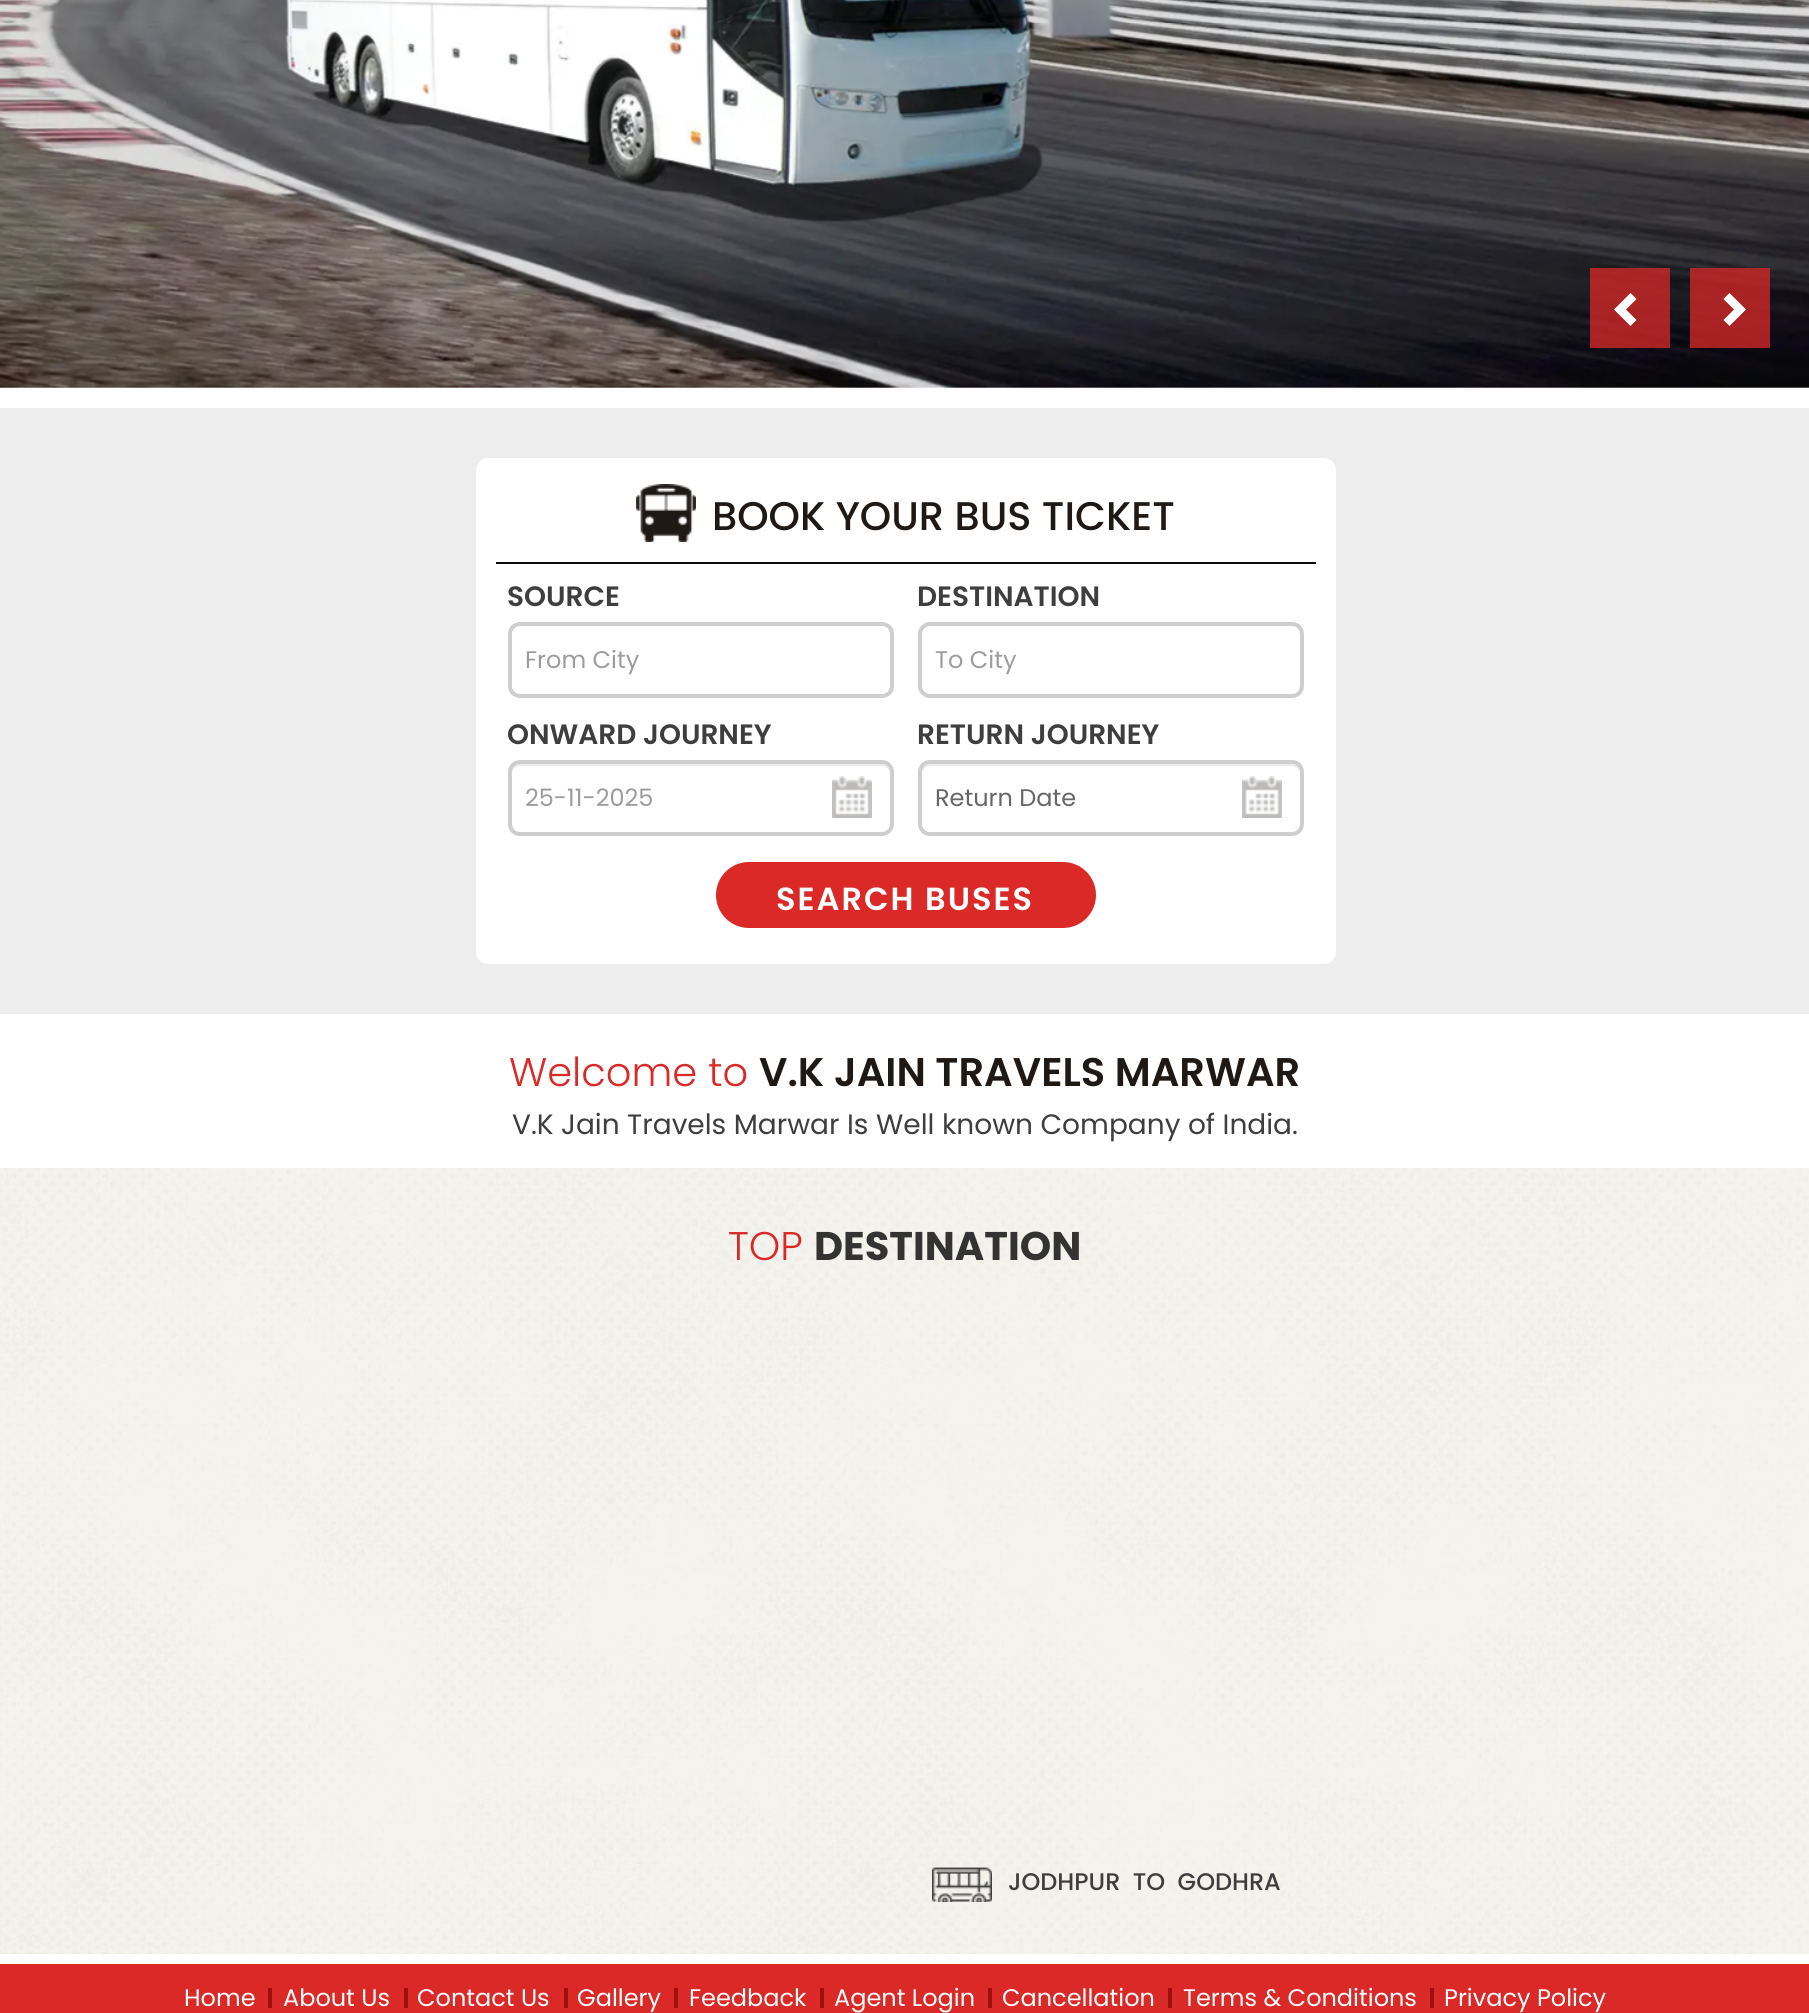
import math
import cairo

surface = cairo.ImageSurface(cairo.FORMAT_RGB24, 1809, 2013)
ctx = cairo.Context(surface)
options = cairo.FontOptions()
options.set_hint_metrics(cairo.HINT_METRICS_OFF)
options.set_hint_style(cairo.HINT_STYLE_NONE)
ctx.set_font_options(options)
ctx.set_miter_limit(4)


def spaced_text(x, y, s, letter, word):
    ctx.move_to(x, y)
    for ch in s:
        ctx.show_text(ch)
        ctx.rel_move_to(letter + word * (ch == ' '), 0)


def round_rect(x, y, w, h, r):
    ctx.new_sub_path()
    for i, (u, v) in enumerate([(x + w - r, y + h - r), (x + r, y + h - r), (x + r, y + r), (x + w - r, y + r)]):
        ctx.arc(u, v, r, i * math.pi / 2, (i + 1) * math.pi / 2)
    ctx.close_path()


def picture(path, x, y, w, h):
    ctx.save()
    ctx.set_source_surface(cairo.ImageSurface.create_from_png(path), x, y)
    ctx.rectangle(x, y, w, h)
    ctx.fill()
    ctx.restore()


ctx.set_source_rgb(1, 1, 1)
ctx.paint()
picture("img1.png", 0, 0, 1809, 388)
ctx.set_source_rgba(0.855, 0.161, 0.153, 0.75)
ctx.rectangle(1590, 268, 80, 80)
ctx.fill()
ctx.set_source_rgb(1, 1, 1)
ctx.new_path()
ctx.move_to(1636.5, 299)
ctx.line_to(1626, 309.5)
ctx.line_to(1636.5, 320)
ctx.line_to(1630.5, 326)
ctx.line_to(1614, 309.5)
ctx.line_to(1630.5, 293)
ctx.close_path()
ctx.fill()
ctx.set_source_rgba(0.855, 0.161, 0.153, 0.75)
ctx.rectangle(1690, 268, 80, 80)
ctx.fill()
ctx.set_source_rgb(1, 1, 1)
ctx.new_path()
ctx.move_to(1746, 309.5)
ctx.line_to(1729.5, 326)
ctx.line_to(1723.5, 320)
ctx.line_to(1734, 309.5)
ctx.line_to(1723.5, 299)
ctx.line_to(1729.5, 293)
ctx.close_path()
ctx.fill()
ctx.set_source_rgb(0.929, 0.929, 0.929)
ctx.rectangle(0, 408, 1809, 606)
ctx.fill()
ctx.set_source_rgb(1, 1, 1)
round_rect(476, 458, 860, 506, 12)
ctx.fill()
ctx.set_source_rgb(0.051, 0.047, 0.047)
ctx.rectangle(496, 562, 820, 2)
ctx.fill()
picture("img2.png", 636, 484, 60, 58)
ctx.select_font_face("Poppins Medium")
ctx.set_font_size(40)
ctx.set_source_rgb(0.122, 0.098, 0.086)
ctx.move_to(712, 530)
ctx.show_text("BOOK YOUR BUS TICKET")
ctx.select_font_face("Poppins SemiBold")
ctx.set_font_size(28)
ctx.set_source_rgb(0.243, 0.243, 0.243)
ctx.move_to(507, 606)
ctx.show_text("SOURCE")
round_rect(510, 624, 382, 72, 10)
ctx.set_source_rgb(0.808, 0.808, 0.808)
ctx.set_line_width(4)
ctx.stroke()
ctx.select_font_face("Poppins")
ctx.set_font_size(24)
ctx.set_source_rgb(0.612, 0.612, 0.612)
ctx.move_to(525, 668)
ctx.show_text("From City")
ctx.select_font_face("Poppins SemiBold")
ctx.set_font_size(28)
ctx.set_source_rgb(0.243, 0.243, 0.243)
ctx.move_to(917, 606)
ctx.show_text("DESTINATION")
round_rect(920, 624, 382, 72, 10)
ctx.set_source_rgb(0.808, 0.808, 0.808)
ctx.stroke()
ctx.select_font_face("Poppins")
ctx.set_font_size(24)
ctx.set_source_rgb(0.612, 0.612, 0.612)
ctx.move_to(935, 668)
ctx.show_text("To City")
ctx.select_font_face("Poppins SemiBold")
ctx.set_font_size(28)
ctx.set_source_rgb(0.243, 0.243, 0.243)
ctx.move_to(507, 744)
ctx.show_text("ONWARD JOURNEY")
picture("img3.png", 832, 776, 40, 42)
ctx.set_source_rgb(0.925, 0.925, 0.925)
ctx.new_path()
ctx.move_to(520, 766)
ctx.line_to(882, 766)
ctx.curve_to(886, 766, 890, 770, 890, 774)
ctx.curve_to(890, 769, 888, 764, 882, 764)
ctx.line_to(518, 764)
ctx.curve_to(513, 765, 512, 770, 512, 774)
ctx.curve_to(512, 770, 516, 766, 520, 766)
ctx.close_path()
ctx.fill()
round_rect(510, 762, 382, 72, 10)
ctx.set_source_rgb(0.808, 0.808, 0.808)
ctx.stroke()
ctx.select_font_face("Poppins")
ctx.set_font_size(24)
ctx.set_source_rgb(0.612, 0.612, 0.612)
ctx.move_to(525, 806)
ctx.show_text("25-11-2025")
ctx.select_font_face("Poppins SemiBold")
ctx.set_font_size(28)
ctx.set_source_rgb(0.243, 0.243, 0.243)
ctx.move_to(917, 744)
ctx.show_text("RETURN JOURNEY")
picture("img3.png", 1242, 776, 40, 42)
ctx.set_source_rgb(0.925, 0.925, 0.925)
ctx.new_path()
ctx.move_to(930, 766)
ctx.line_to(1292, 766)
ctx.curve_to(1296, 766, 1300, 770, 1300, 774)
ctx.curve_to(1300, 769, 1298, 764, 1292, 764)
ctx.line_to(928, 764)
ctx.curve_to(923, 765, 922, 770, 922, 774)
ctx.curve_to(922, 770, 926, 766, 930, 766)
ctx.close_path()
ctx.fill()
round_rect(920, 762, 382, 72, 10)
ctx.set_source_rgb(0.808, 0.808, 0.808)
ctx.stroke()
ctx.select_font_face("Poppins")
ctx.set_font_size(24)
ctx.set_source_rgb(0.4, 0.4, 0.4)
ctx.move_to(935, 806)
ctx.show_text("Return Date")
ctx.set_source_rgb(0.855, 0.161, 0.153)
round_rect(716, 862, 380, 66, 33)
ctx.fill()
ctx.select_font_face("Poppins SemiBold")
ctx.set_font_size(32)
ctx.set_source_rgb(1, 1, 1)
spaced_text(776, 910, "SEARCH BUSES", 2, 0)
ctx.select_font_face("Poppins Light")
ctx.set_font_size(40)
ctx.set_source_rgb(0.855, 0.161, 0.153)
ctx.move_to(509, 1086)
ctx.show_text("Welcome to")
ctx.select_font_face("Poppins SemiBold")
ctx.set_source_rgb(0.122, 0.098, 0.086)
ctx.move_to(759, 1086)
ctx.show_text("V.K JAIN TRAVELS MARWAR")
ctx.select_font_face("Poppins")
ctx.set_font_size(28)
ctx.set_source_rgb(0.243, 0.243, 0.243)
ctx.move_to(512, 1134)
ctx.show_text("V.K Jain Travels Marwar Is Well known Company of India.")
picture("img4.png", 0, 1168, 1809, 786)
ctx.select_font_face("Poppins Light")
ctx.set_font_size(40)
ctx.set_source_rgb(0.855, 0.161, 0.153)
ctx.move_to(728, 1260)
ctx.show_text("TOP")
ctx.select_font_face("Poppins", cairo.FONT_SLANT_NORMAL, cairo.FONT_WEIGHT_BOLD)
ctx.set_source_rgb(0.2, 0.2, 0.2)
ctx.move_to(814, 1260)
ctx.show_text("DESTINATION")
picture("img5.png", 932, 1867, 60, 35)
ctx.select_font_face("Poppins Medium")
ctx.set_font_size(24)
ctx.set_source_rgb(0.243, 0.243, 0.243)
ctx.move_to(1008, 1890)
ctx.show_text("JODHPUR  TO  GODHRA")
ctx.set_source_rgb(0.855, 0.161, 0.153)
ctx.rectangle(0, 1964, 1809, 49)
ctx.fill()
ctx.select_font_face("Poppins")
ctx.set_source_rgb(1, 1, 1)
ctx.move_to(184, 2006)
ctx.show_text("Home")
ctx.set_source_rgb(0.631, 0.059, 0.051)
ctx.rectangle(268, 1988, 4, 20)
ctx.fill()
ctx.set_source_rgb(1, 1, 1)
ctx.move_to(283, 2006)
ctx.show_text("About Us")
ctx.set_source_rgb(0.631, 0.059, 0.051)
ctx.rectangle(404, 1988, 4, 20)
ctx.fill()
ctx.set_source_rgb(1, 1, 1)
ctx.move_to(417, 2006)
ctx.show_text("Contact Us")
ctx.set_source_rgb(0.631, 0.059, 0.051)
ctx.rectangle(564, 1988, 4, 20)
ctx.fill()
ctx.set_source_rgb(1, 1, 1)
ctx.move_to(577, 2006)
ctx.show_text("Gallery")
ctx.set_source_rgb(0.631, 0.059, 0.051)
ctx.rectangle(674, 1988, 4, 20)
ctx.fill()
ctx.set_source_rgb(1, 1, 1)
ctx.move_to(689, 2006)
ctx.show_text("Feedback")
ctx.set_source_rgb(0.631, 0.059, 0.051)
ctx.rectangle(820, 1988, 4, 20)
ctx.fill()
ctx.set_source_rgb(1, 1, 1)
ctx.move_to(834, 2006)
ctx.show_text("Agent Login")
ctx.set_source_rgb(0.631, 0.059, 0.051)
ctx.rectangle(988, 1988, 4, 20)
ctx.fill()
ctx.set_source_rgb(1, 1, 1)
ctx.move_to(1002, 2006)
ctx.show_text("Cancellation")
ctx.set_source_rgb(0.631, 0.059, 0.051)
ctx.rectangle(1168, 1988, 4, 20)
ctx.fill()
ctx.set_source_rgb(1, 1, 1)
ctx.move_to(1183, 2006)
ctx.show_text("Terms & Conditions")
ctx.set_source_rgb(0.631, 0.059, 0.051)
ctx.rectangle(1430, 1988, 4, 20)
ctx.fill()
ctx.set_source_rgb(1, 1, 1)
ctx.move_to(1444, 2006)
ctx.show_text("Privacy Policy")
surface.write_to_png("page.png")
